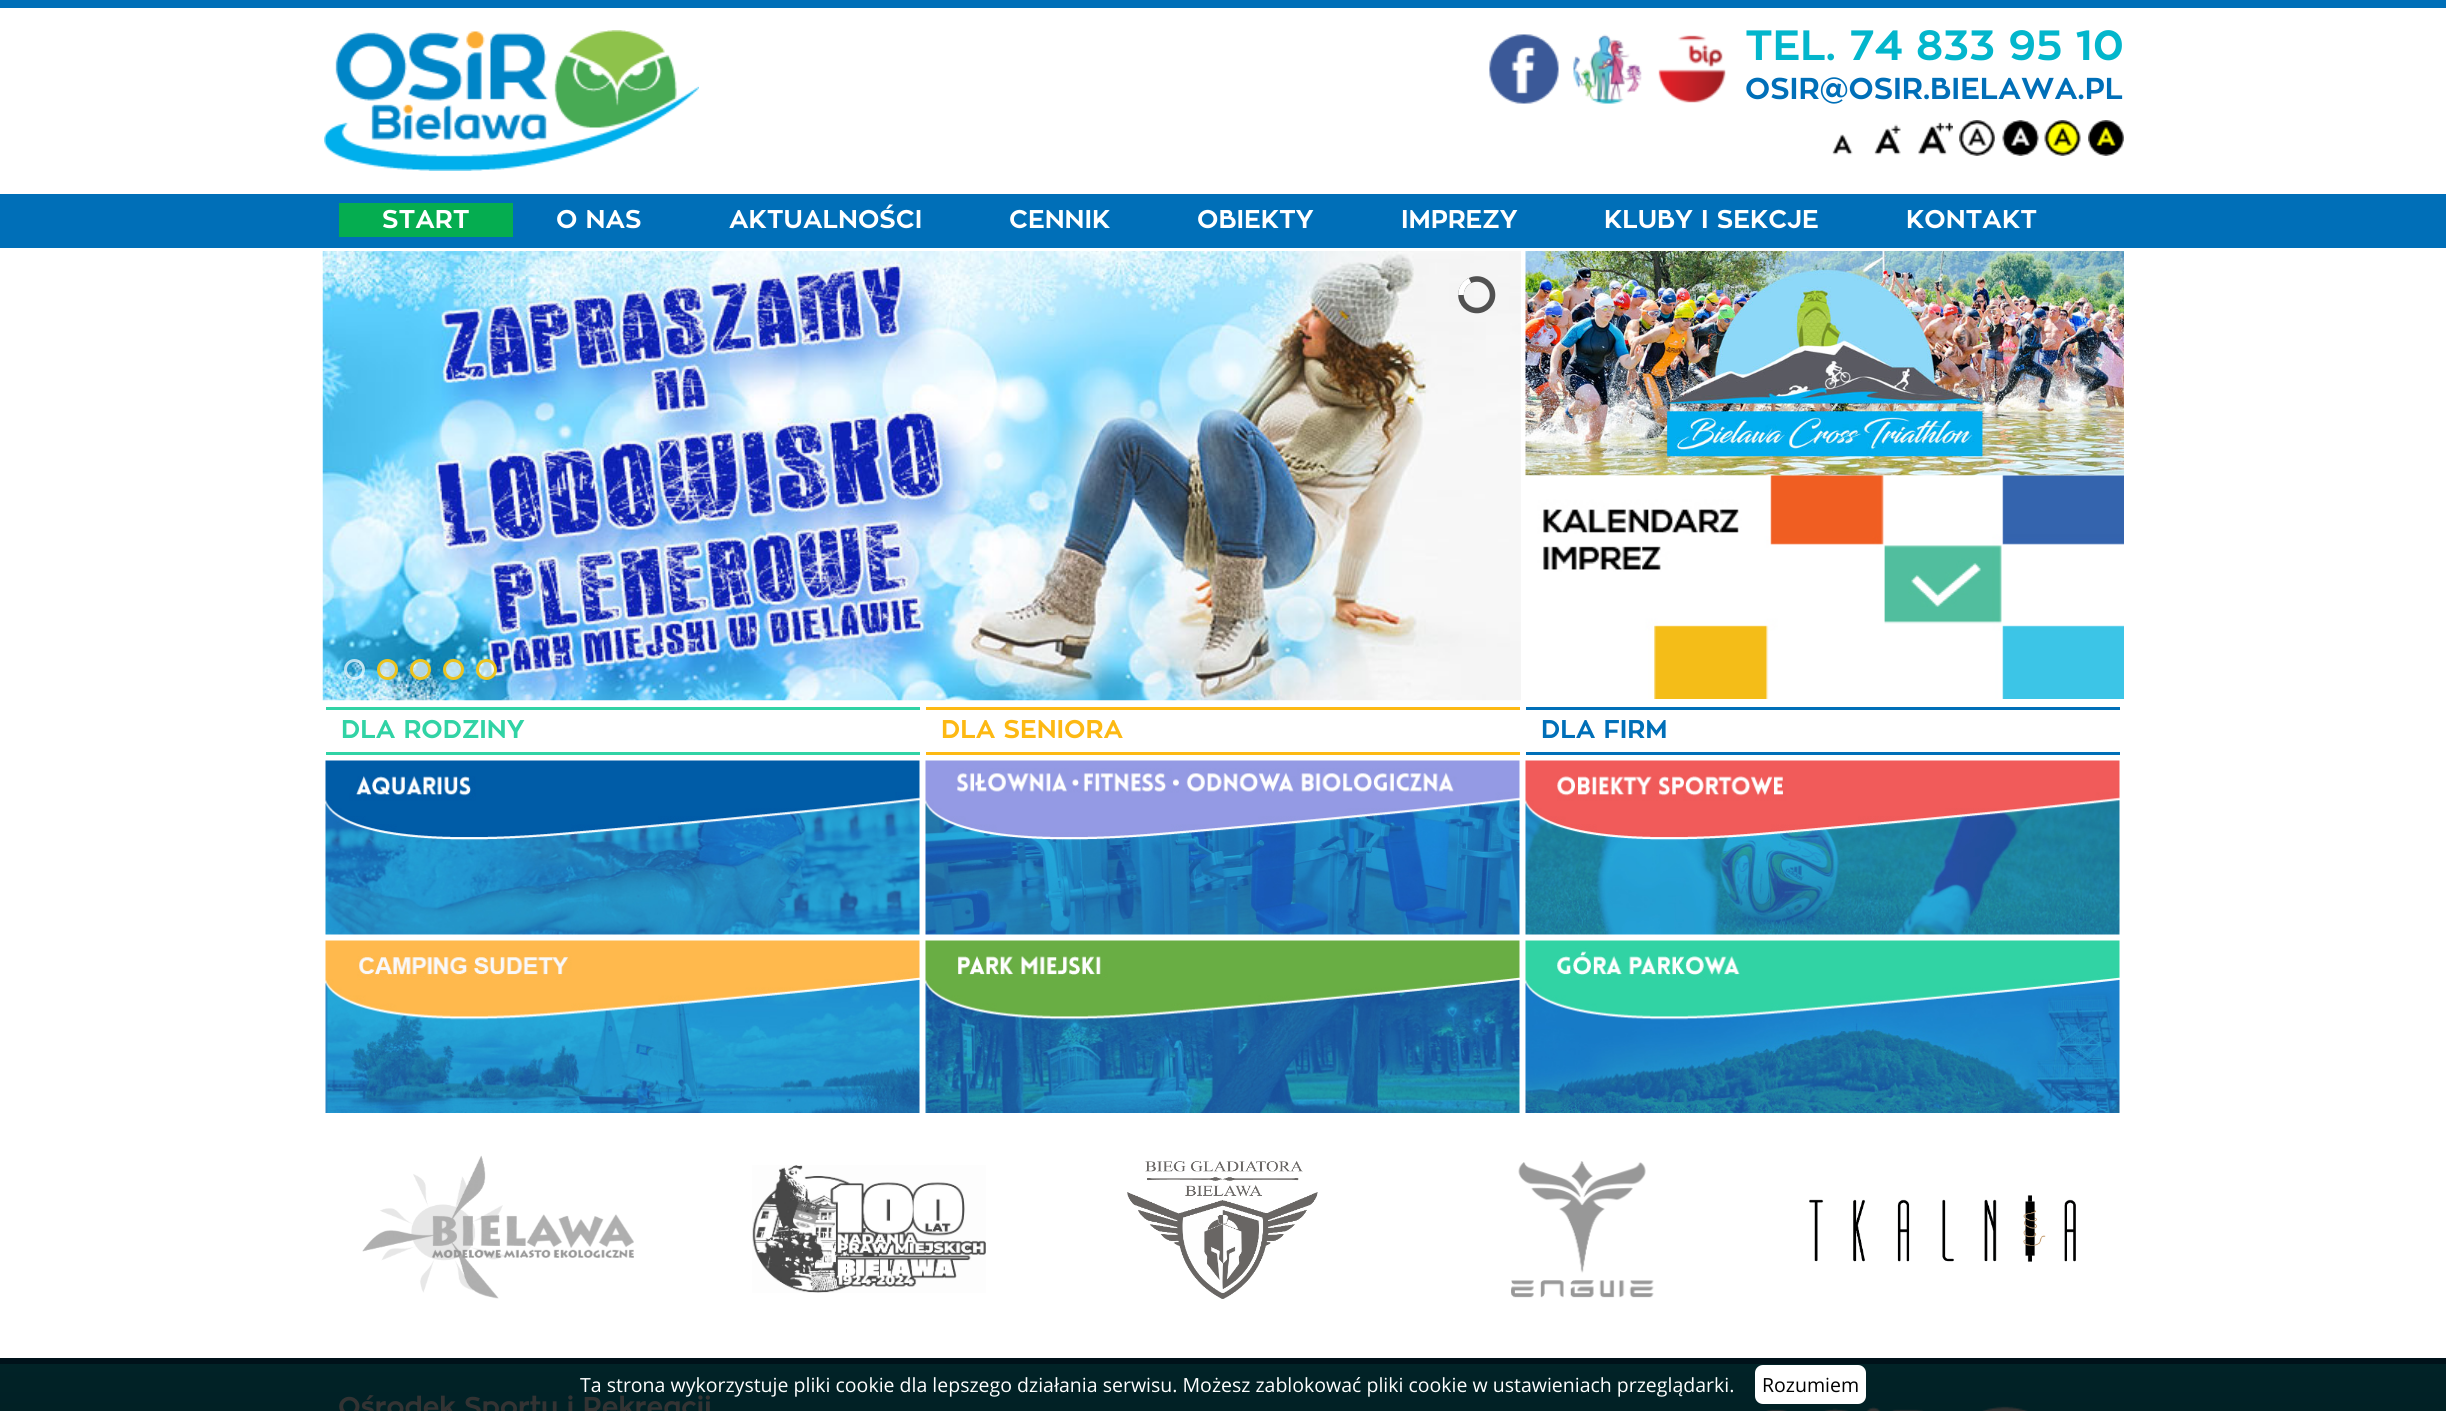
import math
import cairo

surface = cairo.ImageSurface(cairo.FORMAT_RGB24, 2446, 1411)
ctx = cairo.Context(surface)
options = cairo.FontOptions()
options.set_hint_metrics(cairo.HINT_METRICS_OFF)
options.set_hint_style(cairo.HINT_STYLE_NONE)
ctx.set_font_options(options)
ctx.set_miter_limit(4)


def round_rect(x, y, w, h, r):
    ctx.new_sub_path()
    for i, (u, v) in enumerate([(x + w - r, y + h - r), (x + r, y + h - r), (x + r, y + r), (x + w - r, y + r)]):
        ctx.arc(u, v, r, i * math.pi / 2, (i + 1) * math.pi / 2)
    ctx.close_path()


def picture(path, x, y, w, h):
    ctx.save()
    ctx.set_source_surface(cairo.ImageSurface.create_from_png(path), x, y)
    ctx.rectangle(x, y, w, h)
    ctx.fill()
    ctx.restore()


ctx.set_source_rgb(1, 1, 1)
ctx.paint()
ctx.set_source_rgb(0, 0.435, 0.722)
ctx.rectangle(0, 0, 2446, 8)
ctx.fill()
picture("img1.png", 324, 30, 375, 141)
picture("img2.png", 1489, 34, 70, 70)
picture("img3.png", 1573, 34, 69, 70)
picture("img4.png", 1658, 35, 68, 68)
ctx.select_font_face("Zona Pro", cairo.FONT_SLANT_NORMAL, cairo.FONT_WEIGHT_BOLD)
ctx.set_font_size(42)
ctx.set_source_rgb(0.012, 0.714, 0.8)
ctx.move_to(1745, 60)
ctx.show_text("TEL. 74 833 95 10")
ctx.set_font_size(30)
ctx.set_source_rgb(0, 0.435, 0.722)
ctx.move_to(1745, 99)
ctx.show_text("OSIR@OSIR.BIELAWA.PL")
picture("img5.png", 1832, 134, 21, 21)
picture("img6.png", 1874, 124, 27, 31)
picture("img7.png", 1918, 122, 35, 33)
picture("img8.png", 1959, 120, 36, 36)
picture("img9.png", 2002, 120, 37, 36)
picture("img10.png", 2044, 120, 37, 36)
picture("img11.png", 2088, 120, 36, 36)
ctx.rectangle(0, 194, 2446, 54)
ctx.fill()
ctx.set_source_rgb(0.02, 0.678, 0.314)
ctx.rectangle(339, 203, 174, 34)
ctx.fill()
ctx.set_font_size(25.5)
ctx.set_source_rgb(1, 1, 1)
ctx.move_to(382, 228)
ctx.show_text("START")
ctx.move_to(556, 228)
ctx.show_text("O NAS")
ctx.move_to(729, 228)
ctx.show_text("AKTUALNOŚCI")
ctx.move_to(1009, 228)
ctx.show_text("CENNIK")
ctx.move_to(1197, 228)
ctx.show_text("OBIEKTY")
ctx.move_to(1401, 228)
ctx.show_text("IMPREZY")
ctx.move_to(1604, 228)
ctx.show_text("KLUBY I SEKCJE")
ctx.move_to(1906, 228)
ctx.show_text("KONTAKT")
picture("img12.png", 322, 251, 1199, 450)
ctx.new_path()
ctx.move_to(1461, 295)
ctx.curve_to(1461, 286, 1468, 279, 1477, 279)
ctx.curve_to(1485.5, 279, 1492.5, 286, 1492.5, 295)
ctx.curve_to(1492.5, 303.5, 1485.5, 310.5, 1477, 310.5)
ctx.curve_to(1468, 310.5, 1461, 303.5, 1461, 295)
ctx.close_path()
ctx.set_source_rgb(0.318, 0.318, 0.318)
ctx.set_line_width(5.6)
ctx.stroke()
ctx.new_path()
ctx.move_to(1461, 295)
ctx.curve_to(1461, 288.5, 1464.5, 283, 1470, 280.5)
ctx.set_source_rgb(1, 1, 1)
ctx.stroke()
ctx.arc(354.5, 669.5, 9, 0, 2 * math.pi)
ctx.set_source_rgba(1, 1, 1, 0.67)
ctx.set_line_width(3)
ctx.stroke()
ctx.arc(387.5, 669.5, 9, 0, 2 * math.pi)
ctx.fill_preserve()
ctx.set_source_rgb(0.925, 0.765, 0.122)
ctx.stroke()
ctx.set_source_rgba(1, 1, 1, 0.67)
ctx.arc(420.5, 669.5, 9, 0, 2 * math.pi)
ctx.fill_preserve()
ctx.set_source_rgb(0.925, 0.765, 0.122)
ctx.stroke()
ctx.set_source_rgba(1, 1, 1, 0.67)
ctx.arc(453.5, 669.5, 9, 0, 2 * math.pi)
ctx.fill_preserve()
ctx.set_source_rgb(0.925, 0.765, 0.122)
ctx.stroke()
ctx.set_source_rgba(1, 1, 1, 0.67)
ctx.arc(486.5, 669.5, 9, 0, 2 * math.pi)
ctx.fill_preserve()
ctx.set_source_rgb(0.925, 0.765, 0.122)
ctx.stroke()
picture("img13.png", 1525, 251, 599, 225)
picture("img14.png", 1525, 475, 599, 224)
ctx.set_source_rgb(0.192, 0.827, 0.647)
ctx.rectangle(326, 707, 594, 3)
ctx.fill()
ctx.rectangle(326, 752, 594, 3)
ctx.fill()
ctx.move_to(341, 738)
ctx.show_text("DLA RODZINY")
ctx.set_source_rgb(0.992, 0.725, 0.075)
ctx.rectangle(926, 707, 594, 3)
ctx.fill()
ctx.rectangle(926, 752, 594, 3)
ctx.fill()
ctx.move_to(941, 738)
ctx.show_text("DLA SENIORA")
ctx.set_source_rgb(0, 0.435, 0.722)
ctx.rectangle(1526, 707, 594, 3)
ctx.fill()
ctx.rectangle(1526, 752, 594, 3)
ctx.fill()
ctx.move_to(1541, 738)
ctx.show_text("DLA FIRM")
picture("img15.png", 325, 760, 595, 175)
picture("img16.png", 925, 760, 595, 175)
picture("img17.png", 1525, 760, 595, 175)
picture("img18.png", 325, 940, 595, 173)
picture("img19.png", 925, 940, 595, 173)
picture("img20.png", 1525, 940, 595, 173)
picture("img21.png", 362, 1155, 272, 144)
picture("img22.png", 752, 1165, 234, 128)
picture("img23.png", 1127, 1161, 191, 138)
picture("img24.png", 1511, 1161, 143, 137)
picture("img25.png", 1809, 1195, 267, 67)
gradient = cairo.LinearGradient(1223, 1363, 1223, 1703)
gradient.add_color_stop_rgba(0, 0.004, 0.137, 0.153, 1)
gradient.add_color_stop_rgba(1, 0, 0.071, 0.102, 1)
ctx.set_source(gradient)
ctx.rectangle(0, 1364, 2446, 47)
ctx.fill()
ctx.select_font_face("Open Sans")
ctx.set_font_size(19.5)
ctx.set_source_rgb(1, 1, 1)
ctx.move_to(580, 1392)
ctx.show_text("Ta strona wykorzystuje pliki cookie dla lepszego działania serwisu. Możesz zablokować pliki cookie w ustawieniach przeglądarki.")
round_rect(1755, 1365, 111, 39, 8)
ctx.fill()
ctx.set_source_rgb(0, 0, 0)
ctx.move_to(1762, 1392)
ctx.show_text("Rozumiem")
ctx.set_source_rgb(0, 0.071, 0.102)
ctx.rectangle(0, 1358, 2446, 6)
ctx.fill()
ctx.select_font_face("Zona Pro", cairo.FONT_SLANT_NORMAL, cairo.FONT_WEIGHT_BOLD)
ctx.set_font_size(27)
ctx.set_source_rgb(0.2, 0.2, 0.2)
ctx.move_to(338, 1416)
ctx.show_text("Ośrodek Sportu i Rekreacji")
picture("img26.png", 1765, 1406, 263, 5)
surface.write_to_png("page.png")
